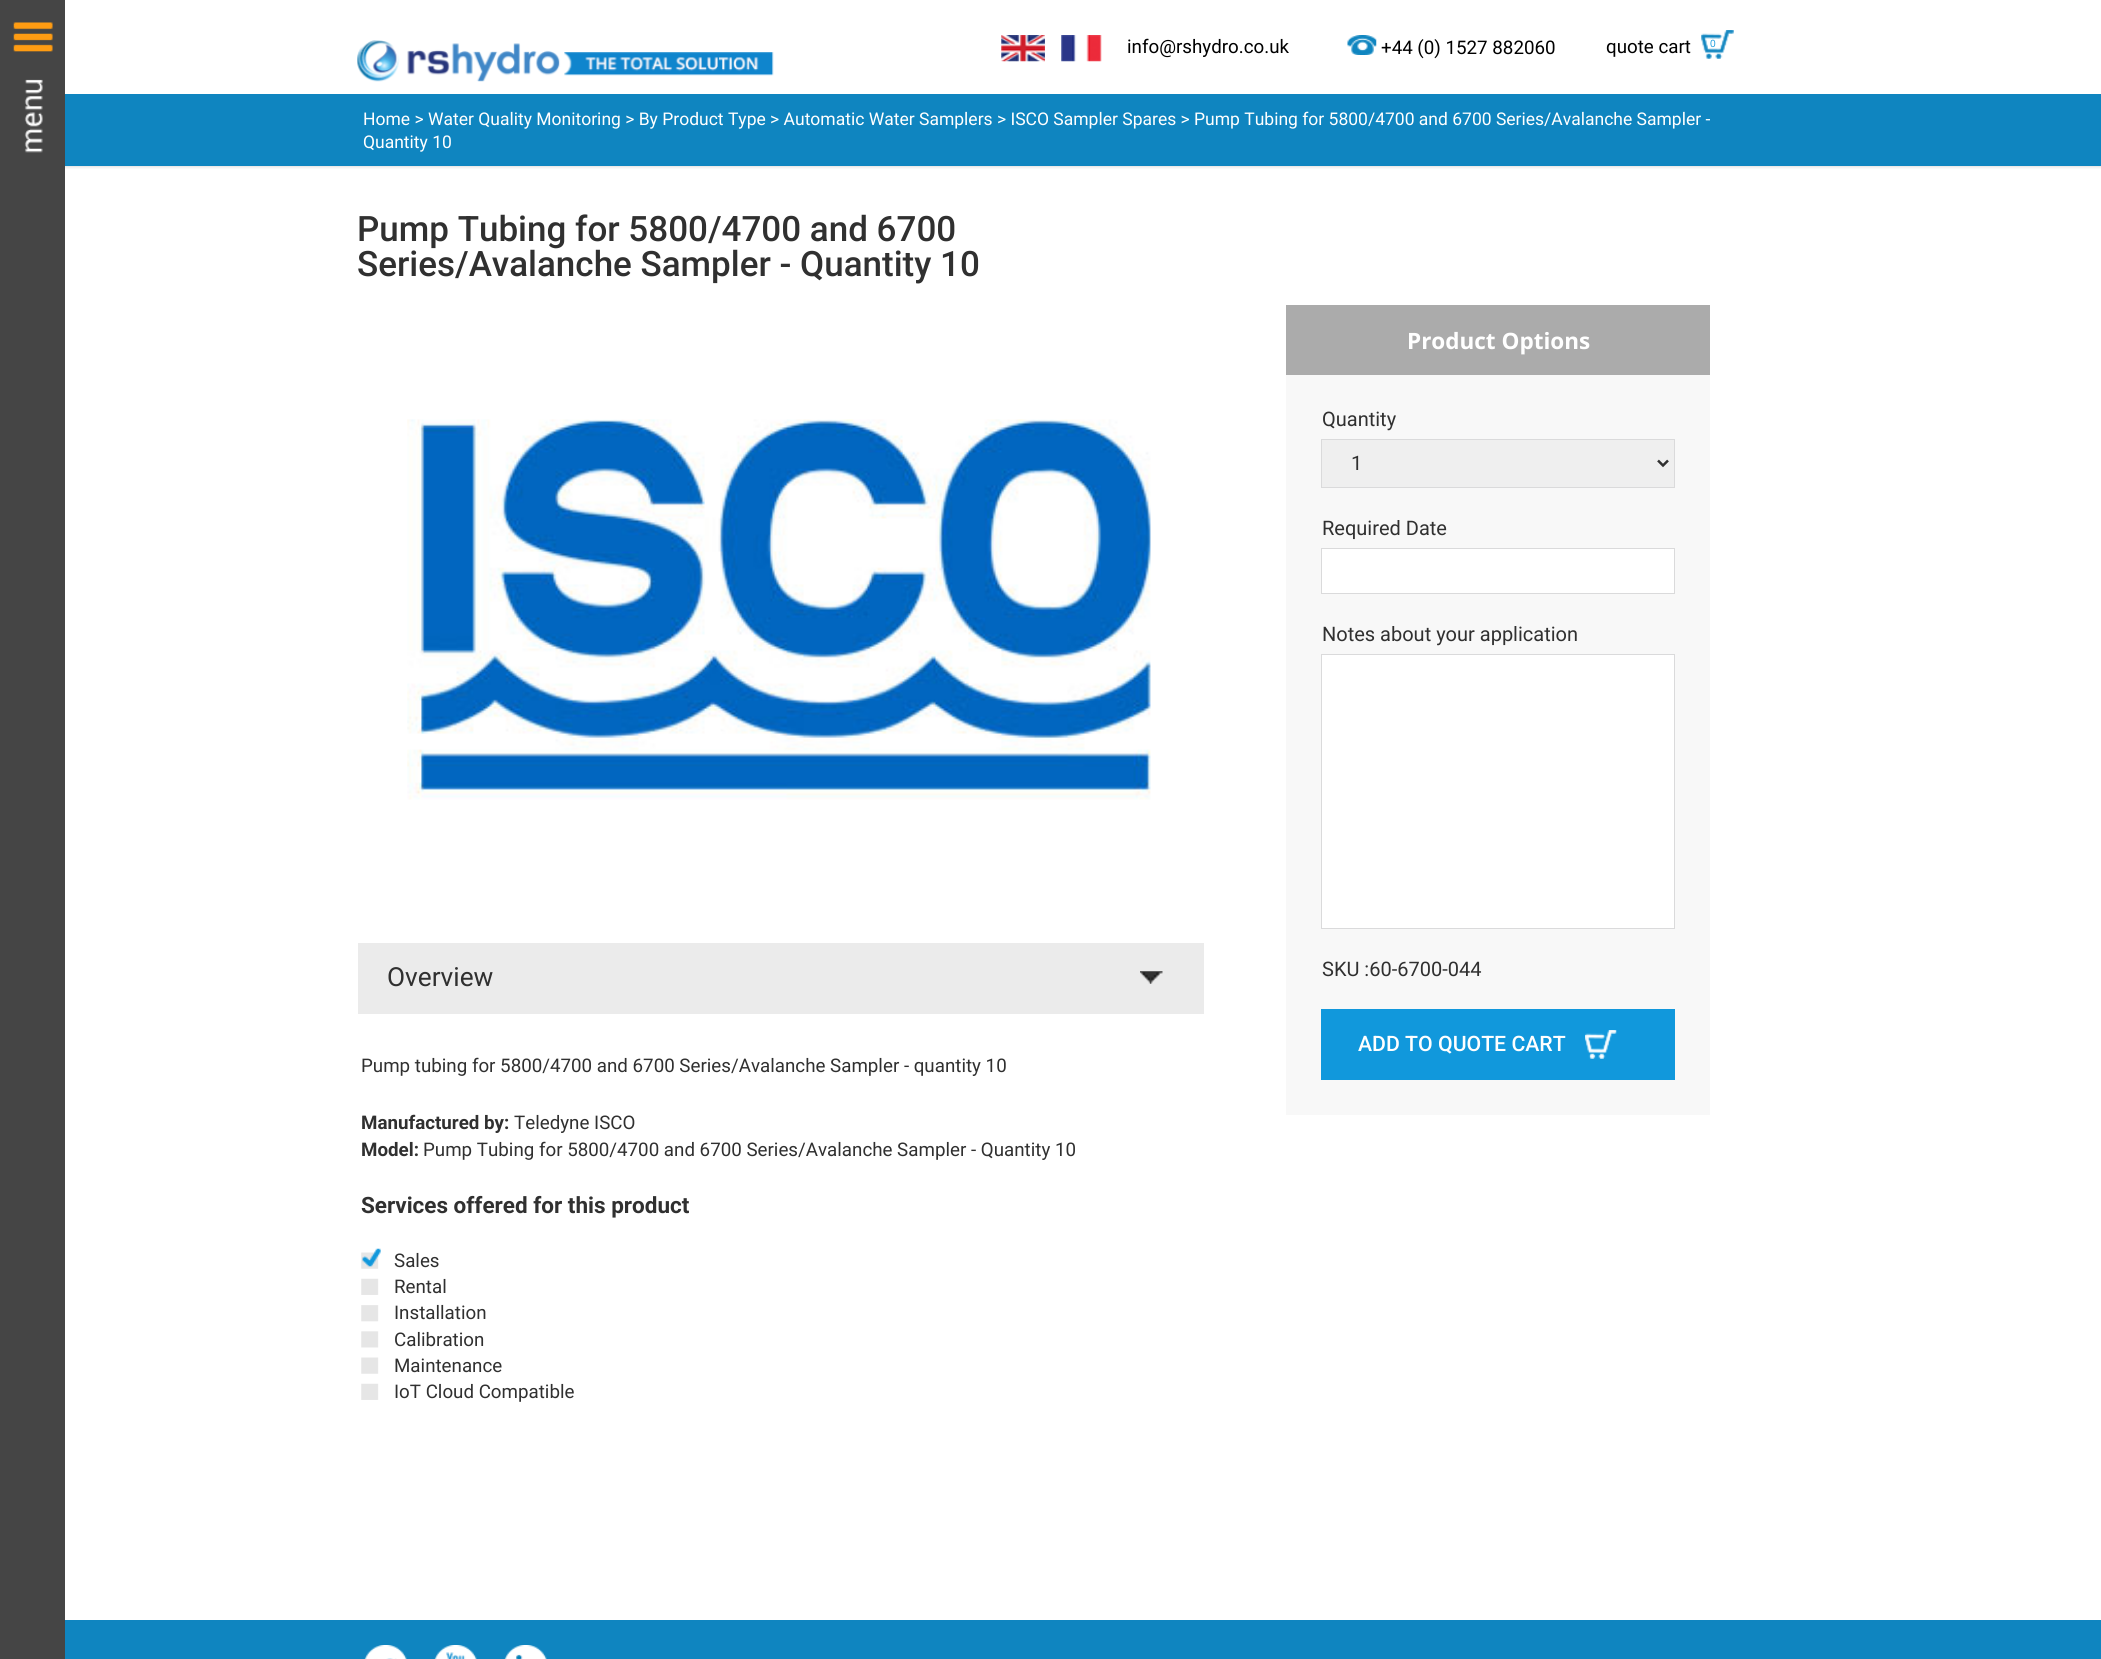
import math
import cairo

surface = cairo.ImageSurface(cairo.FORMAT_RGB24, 2101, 1659)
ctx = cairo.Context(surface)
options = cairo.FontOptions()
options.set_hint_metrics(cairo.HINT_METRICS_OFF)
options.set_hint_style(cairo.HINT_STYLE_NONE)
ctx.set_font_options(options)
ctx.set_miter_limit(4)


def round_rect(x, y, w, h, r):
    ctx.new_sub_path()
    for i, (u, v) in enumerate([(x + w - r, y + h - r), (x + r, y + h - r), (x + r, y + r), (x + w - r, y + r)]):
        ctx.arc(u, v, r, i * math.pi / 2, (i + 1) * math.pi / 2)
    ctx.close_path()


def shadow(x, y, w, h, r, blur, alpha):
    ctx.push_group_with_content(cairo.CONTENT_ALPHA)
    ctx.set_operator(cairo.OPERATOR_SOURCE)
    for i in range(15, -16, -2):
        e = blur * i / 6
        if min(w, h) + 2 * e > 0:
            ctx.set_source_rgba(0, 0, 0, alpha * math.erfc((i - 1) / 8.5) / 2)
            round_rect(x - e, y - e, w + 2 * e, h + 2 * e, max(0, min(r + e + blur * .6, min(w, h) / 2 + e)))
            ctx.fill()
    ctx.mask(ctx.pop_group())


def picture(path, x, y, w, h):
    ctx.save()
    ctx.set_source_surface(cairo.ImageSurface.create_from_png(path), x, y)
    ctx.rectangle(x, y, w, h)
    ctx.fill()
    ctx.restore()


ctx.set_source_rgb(1, 1, 1)
ctx.paint()
ctx.save()
ctx.rectangle(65, 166, 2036, 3)
ctx.clip()
ctx.set_source_rgb(0, 0, 0)
shadow(0, 0, 2101, 166, 0, 2, 0.22)
ctx.restore()
ctx.set_source_rgb(0.271, 0.271, 0.271)
ctx.rectangle(0, 0, 65, 1659)
ctx.fill()
picture("img1.png", 13, 22, 40, 131)
picture("img2.png", 357, 40, 417, 42)
picture("img3.png", 1001, 35, 44, 27)
picture("img4.png", 1061, 35, 41, 27)
ctx.select_font_face("Roboto")
ctx.set_font_size(18.75)
ctx.set_source_rgb(0, 0, 0)
ctx.move_to(1127, 53)
ctx.show_text("info@rshydro.co.uk")
picture("img5.png", 1347, 35, 30, 20)
ctx.move_to(1381, 54)
ctx.show_text("+44 (0) 1527 882060")
ctx.move_to(1606, 53)
ctx.show_text("quote cart")
picture("img6.png", 1701, 30, 33, 29)
ctx.select_font_face("Open Sans")
ctx.set_font_size(10)
ctx.set_source_rgb(0.067, 0.596, 0.863)
ctx.move_to(1710, 47)
ctx.show_text("0")
ctx.set_source_rgb(0.059, 0.522, 0.753)
ctx.rectangle(65, 94, 2036, 72)
ctx.fill()
ctx.select_font_face("Roboto")
ctx.set_font_size(17.5)
ctx.set_source_rgb(1, 1, 1)
ctx.move_to(363, 125)
ctx.show_text("Home > Water Quality Monitoring > By Product Type > Automatic Water Samplers > ISCO Sampler Spares > Pump Tubing for 5800/4700 and 6700 Series/Avalanche Sampler -")
ctx.move_to(363, 148)
ctx.show_text("Quantity 10")
ctx.select_font_face("Roboto Medium")
ctx.set_font_size(35)
ctx.set_source_rgb(0.188, 0.188, 0.188)
ctx.move_to(357, 241)
ctx.show_text("Pump Tubing for 5800/4700 and 6700")
ctx.move_to(357, 276)
ctx.show_text("Series/Avalanche Sampler - Quantity 10")
picture("img7.png", 407, 419, 744, 381)
ctx.set_source_rgb(0.671, 0.671, 0.671)
ctx.rectangle(1286, 305, 424, 70)
ctx.fill()
ctx.select_font_face("Open Sans", cairo.FONT_SLANT_NORMAL, cairo.FONT_WEIGHT_BOLD)
ctx.set_font_size(22.5)
ctx.set_source_rgb(1, 1, 1)
ctx.move_to(1407, 349)
ctx.show_text("Product Options")
ctx.set_source_rgb(0.969, 0.969, 0.969)
ctx.rectangle(1286, 375, 424, 740)
ctx.fill()
ctx.select_font_face("Roboto")
ctx.set_font_size(20)
ctx.set_source_rgb(0.188, 0.188, 0.188)
ctx.move_to(1322, 426)
ctx.show_text("Quantity")
ctx.set_source_rgb(0.937, 0.937, 0.937)
ctx.rectangle(1321.5, 439.5, 353, 48)
ctx.fill_preserve()
ctx.set_source_rgb(0.855, 0.855, 0.859)
ctx.set_line_width(1)
ctx.stroke()
ctx.new_path()
ctx.move_to(1658, 460.5)
ctx.line_to(1663, 465.5)
ctx.line_to(1668, 460.5)
ctx.set_source_rgb(0.188, 0.188, 0.188)
ctx.set_line_width(2.5)
ctx.stroke()
ctx.move_to(1351, 470)
ctx.show_text("1")
ctx.move_to(1322, 535)
ctx.show_text("Required Date")
ctx.set_source_rgb(1, 1, 1)
ctx.rectangle(1321.5, 548.5, 353, 45)
ctx.fill_preserve()
ctx.set_source_rgb(0.855, 0.855, 0.859)
ctx.set_line_width(1)
ctx.stroke()
ctx.set_source_rgb(0.188, 0.188, 0.188)
ctx.move_to(1322, 641)
ctx.show_text("Notes about your application")
ctx.set_source_rgb(1, 1, 1)
ctx.rectangle(1321.5, 654.5, 353, 274)
ctx.fill_preserve()
ctx.set_source_rgb(0.855, 0.855, 0.859)
ctx.stroke()
ctx.set_source_rgb(0.188, 0.188, 0.188)
ctx.move_to(1322, 976)
ctx.show_text("SKU :60-6700-044")
ctx.set_source_rgb(0.067, 0.596, 0.863)
ctx.rectangle(1321, 1009, 354, 71)
ctx.fill()
picture("img8.png", 1585, 1030, 32, 29)
ctx.select_font_face("Roboto Medium")
ctx.set_font_size(21.25)
ctx.set_source_rgb(1, 1, 1)
ctx.move_to(1358, 1051)
ctx.show_text("ADD TO QUOTE CART")
ctx.set_source_rgb(0.918, 0.918, 0.918)
ctx.rectangle(358, 943, 846, 71)
ctx.fill()
picture("img9.png", 1140, 971, 23, 13)
ctx.select_font_face("Roboto")
ctx.set_font_size(26.25)
ctx.set_source_rgb(0.188, 0.188, 0.188)
ctx.move_to(387, 986)
ctx.show_text("Overview")
ctx.set_font_size(18.75)
ctx.move_to(361, 1072)
ctx.show_text("Pump tubing for 5800/4700 and 6700 Series/Avalanche Sampler - quantity 10")
ctx.select_font_face("Roboto", cairo.FONT_SLANT_NORMAL, cairo.FONT_WEIGHT_BOLD)
ctx.move_to(361, 1129)
ctx.show_text("Manufactured by:")
ctx.select_font_face("Roboto")
ctx.move_to(514, 1129)
ctx.show_text("Teledyne ISCO")
ctx.select_font_face("Roboto", cairo.FONT_SLANT_NORMAL, cairo.FONT_WEIGHT_BOLD)
ctx.move_to(361, 1156)
ctx.show_text("Model:")
ctx.select_font_face("Roboto")
ctx.move_to(423, 1156)
ctx.show_text("Pump Tubing for 5800/4700 and 6700 Series/Avalanche Sampler - Quantity 10")
ctx.select_font_face("Roboto", cairo.FONT_SLANT_NORMAL, cairo.FONT_WEIGHT_BOLD)
ctx.set_font_size(22.5)
ctx.move_to(361, 1213)
ctx.show_text("Services offered for this product")
picture("img10.png", 361, 1248, 20, 21)
ctx.select_font_face("Roboto")
ctx.set_font_size(18.75)
ctx.move_to(394, 1267)
ctx.show_text("Sales")
picture("img11.png", 361, 1278, 18, 17)
ctx.move_to(394, 1293)
ctx.show_text("Rental")
picture("img12.png", 361, 1305, 18, 17)
ctx.move_to(394, 1319)
ctx.show_text("Installation")
picture("img13.png", 361, 1331, 18, 17)
ctx.move_to(394, 1346)
ctx.show_text("Calibration")
picture("img14.png", 361, 1357, 18, 17)
ctx.move_to(394, 1372)
ctx.show_text("Maintenance")
picture("img11.png", 361, 1383, 18, 17)
ctx.move_to(394, 1398)
ctx.show_text("IoT Cloud Compatible")
ctx.set_source_rgb(0.059, 0.522, 0.753)
ctx.rectangle(65, 1620, 2036, 39)
ctx.fill()
picture("img15.png", 364, 1645, 43, 14)
picture("img16.png", 434, 1645, 43, 14)
picture("img17.png", 504, 1645, 43, 14)
surface.write_to_png("page.png")
